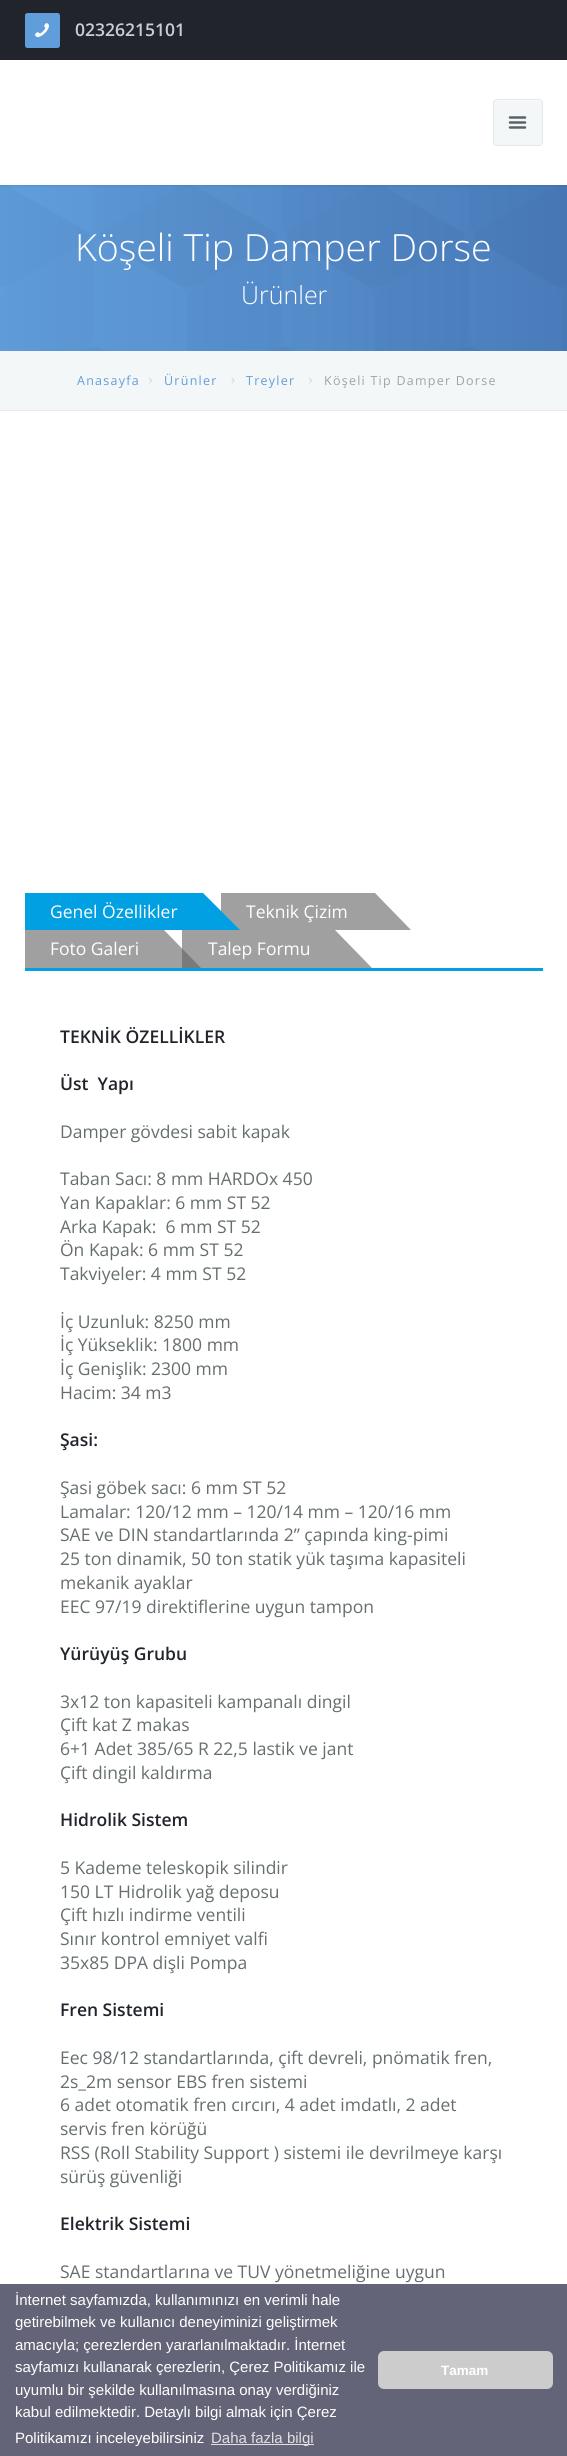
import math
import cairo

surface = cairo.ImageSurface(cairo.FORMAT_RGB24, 567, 2456)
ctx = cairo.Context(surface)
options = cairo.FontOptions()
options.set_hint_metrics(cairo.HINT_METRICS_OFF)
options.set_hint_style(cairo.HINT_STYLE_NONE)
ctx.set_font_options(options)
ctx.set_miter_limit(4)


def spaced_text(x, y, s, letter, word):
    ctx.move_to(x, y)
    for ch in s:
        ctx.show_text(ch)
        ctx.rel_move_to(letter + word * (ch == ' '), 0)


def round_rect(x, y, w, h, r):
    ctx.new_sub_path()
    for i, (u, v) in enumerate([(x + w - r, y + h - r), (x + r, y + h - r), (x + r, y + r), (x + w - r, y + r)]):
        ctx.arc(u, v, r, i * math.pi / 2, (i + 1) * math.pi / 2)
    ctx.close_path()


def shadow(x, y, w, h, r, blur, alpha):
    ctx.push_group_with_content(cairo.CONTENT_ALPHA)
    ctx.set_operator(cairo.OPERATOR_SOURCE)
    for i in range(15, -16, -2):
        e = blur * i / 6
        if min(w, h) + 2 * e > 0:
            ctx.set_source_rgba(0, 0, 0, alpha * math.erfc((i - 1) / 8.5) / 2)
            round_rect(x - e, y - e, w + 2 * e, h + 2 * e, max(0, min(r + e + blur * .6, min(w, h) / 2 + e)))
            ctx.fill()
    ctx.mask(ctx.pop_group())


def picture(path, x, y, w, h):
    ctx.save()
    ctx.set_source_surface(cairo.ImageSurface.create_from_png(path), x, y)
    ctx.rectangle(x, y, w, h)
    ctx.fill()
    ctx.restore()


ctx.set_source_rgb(1, 1, 1)
ctx.paint()
ctx.set_source_rgb(0.129, 0.145, 0.169)
ctx.rectangle(0, 0, 567, 60)
ctx.fill()
ctx.set_source_rgb(0.376, 0.616, 0.859)
round_rect(25, 13, 35, 35, 2.5)
ctx.fill()
picture("img1.png", 35, 23, 14, 15)
ctx.select_font_face("Open Sans SemiBold")
ctx.set_font_size(17.5)
ctx.set_source_rgb(0.8, 0.8, 0.835)
ctx.move_to(75, 36)
ctx.show_text("02326215101")
gradient = cairo.LinearGradient(0, 268, 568, 268)
gradient.add_color_stop_rgba(0, 0.376, 0.616, 0.859, 1)
gradient.add_color_stop_rgba(1, 0.282, 0.478, 0.725, 1)
ctx.set_source(gradient)
ctx.rectangle(0, 185, 567, 166)
ctx.fill()
picture("img3.png", 0, 185, 567, 166)
ctx.set_source_rgb(0, 0, 0)
shadow(0, 61, 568, 125, 0, 1, 0.08)
ctx.set_source_rgb(1, 1, 1)
ctx.rectangle(0, 60, 567, 125)
ctx.fill()
ctx.set_source_rgb(0.957, 0.965, 0.965)
round_rect(493, 99, 50, 47, 4)
ctx.fill()
ctx.set_source_rgb(0.973, 0.98, 0.98)
ctx.new_path()
ctx.move_to(496, 101)
ctx.line_to(539, 101)
ctx.curve_to(540, 101, 541, 102, 541, 104)
ctx.curve_to(541, 98, 537, 100, 532, 100)
ctx.line_to(504, 100)
ctx.curve_to(498, 100, 494, 98, 494, 104)
ctx.curve_to(494, 102, 495, 101, 496, 101)
ctx.close_path()
ctx.fill()
round_rect(493.5, 99.5, 49, 46, 3.5)
ctx.set_source_rgb(0.89, 0.914, 0.914)
ctx.set_line_width(1)
ctx.stroke()
picture("img2.png", 508, 116, 19, 13)
ctx.select_font_face("Open Sans Light")
ctx.set_font_size(37.5)
ctx.set_source_rgb(1, 1, 1)
ctx.move_to(75, 261)
ctx.show_text("Köşeli Tip Damper Dorse")
ctx.set_font_size(25)
ctx.move_to(241, 304)
ctx.show_text("Ürünler")
ctx.set_source_rgb(0.957, 0.965, 0.965)
ctx.rectangle(0, 351, 567, 59)
ctx.fill()
ctx.set_source_rgb(0.902, 0.918, 0.918)
ctx.rectangle(0, 410, 567, 1)
ctx.fill()
ctx.select_font_face("Open Sans")
ctx.set_font_size(12.5)
ctx.set_source_rgb(0.376, 0.616, 0.859)
spaced_text(77, 385, "Anasayfa", 1.25, 0)
picture("img4.png", 149, 377, 3, 7)
spaced_text(164, 385, "Ürünler", 1.25, 0)
picture("img5.png", 231, 378, 4, 6)
spaced_text(246, 385, "Treyler", 1.25, 0)
picture("img4.png", 309, 377, 3, 7)
ctx.set_source_rgb(0.612, 0.647, 0.671)
spaced_text(324, 385, "Köşeli Tip Damper Dorse", 1.25, 0)
ctx.save()
ctx.rectangle(25, 893, 518, 75)
ctx.clip()
ctx.set_source_rgb(0.631, 0.627, 0.627)
ctx.new_path()
ctx.move_to(411, 930)
ctx.line_to(221, 930)
ctx.line_to(221, 892)
ctx.line_to(374, 892)
ctx.close_path()
ctx.fill()
ctx.set_source_rgb(0.004, 0.627, 0.886)
ctx.new_path()
ctx.move_to(240, 930)
ctx.line_to(25, 930)
ctx.line_to(25, 892)
ctx.line_to(202, 892)
ctx.close_path()
ctx.fill()
ctx.restore()
ctx.set_font_size(17.5)
ctx.set_source_rgb(1, 1, 1)
ctx.move_to(50, 918)
ctx.show_text("Genel Özellikler")
ctx.move_to(246, 918)
ctx.show_text("Teknik Çizim")
ctx.set_source_rgb(0.631, 0.627, 0.627)
ctx.new_path()
ctx.move_to(201, 968)
ctx.line_to(25, 968)
ctx.line_to(25, 930)
ctx.line_to(164, 930)
ctx.close_path()
ctx.fill()
ctx.set_source_rgb(1, 1, 1)
ctx.move_to(50, 955)
ctx.show_text("Foto Galeri")
ctx.set_source_rgba(0.384, 0.38, 0.38, 0.6)
ctx.new_path()
ctx.move_to(372, 968)
ctx.line_to(182, 968)
ctx.line_to(182, 930)
ctx.line_to(335, 930)
ctx.close_path()
ctx.fill()
ctx.set_source_rgb(1, 1, 1)
ctx.move_to(208, 955)
ctx.show_text("Talep Formu")
ctx.set_source_rgb(0.004, 0.627, 0.886)
ctx.rectangle(25, 968, 518, 3)
ctx.fill()
ctx.select_font_face("Open Sans SemiBold")
ctx.set_source_rgb(0.129, 0.145, 0.169)
ctx.move_to(60, 1043)
ctx.show_text("TEKNİK ÖZELLİKLER")
ctx.move_to(60, 1090)
ctx.show_text("Üst  Yapı")
ctx.select_font_face("Open Sans")
ctx.set_source_rgb(0.4, 0.431, 0.439)
ctx.move_to(60, 1138)
ctx.show_text("Damper gövdesi sabit kapak")
ctx.move_to(60, 1185)
ctx.show_text("Taban Sacı: 8 mm HARDOx 450")
ctx.move_to(60, 1209)
ctx.show_text("Yan Kapaklar: 6 mm ST 52")
ctx.move_to(60, 1233)
ctx.show_text("Arka Kapak:  6 mm ST 52")
ctx.move_to(60, 1256)
ctx.show_text("Ön Kapak: 6 mm ST 52")
ctx.move_to(60, 1280)
ctx.show_text("Takviyeler: 4 mm ST 52")
ctx.move_to(60, 1328)
ctx.show_text("İç Uzunluk: 8250 mm")
ctx.move_to(60, 1351)
ctx.show_text("İç Yükseklik: 1800 mm")
ctx.move_to(60, 1375)
ctx.show_text("İç Genişlik: 2300 mm")
ctx.move_to(60, 1399)
ctx.show_text("Hacim: 34 m3")
ctx.select_font_face("Open Sans SemiBold")
ctx.set_source_rgb(0.129, 0.145, 0.169)
ctx.move_to(60, 1446)
ctx.show_text("Şasi:")
ctx.select_font_face("Open Sans")
ctx.set_source_rgb(0.4, 0.431, 0.439)
ctx.move_to(60, 1494)
ctx.show_text("Şasi göbek sacı: 6 mm ST 52")
ctx.move_to(60, 1518)
ctx.show_text("Lamalar: 120/12 mm – 120/14 mm – 120/16 mm")
ctx.move_to(60, 1541)
ctx.show_text("SAE ve DIN standartlarında 2” çapında king-pimi")
ctx.move_to(60, 1565)
ctx.show_text("25 ton dinamik, 50 ton statik yük taşıma kapasiteli")
ctx.move_to(60, 1589)
ctx.show_text("mekanik ayaklar")
ctx.move_to(60, 1613)
ctx.show_text("EEC 97/19 direktiflerine uygun tampon")
ctx.select_font_face("Open Sans SemiBold")
ctx.set_source_rgb(0.129, 0.145, 0.169)
ctx.move_to(60, 1660)
ctx.show_text("Yürüyüş Grubu")
ctx.select_font_face("Open Sans")
ctx.set_source_rgb(0.4, 0.431, 0.439)
ctx.move_to(60, 1708)
ctx.show_text("3x12 ton kapasiteli kampanalı dingil")
ctx.move_to(60, 1731)
ctx.show_text("Çift kat Z makas")
ctx.move_to(60, 1755)
ctx.show_text("6+1 Adet 385/65 R 22,5 lastik ve jant")
ctx.move_to(60, 1779)
ctx.show_text("Çift dingil kaldırma")
ctx.select_font_face("Open Sans SemiBold")
ctx.set_source_rgb(0.129, 0.145, 0.169)
ctx.move_to(60, 1826)
ctx.show_text("Hidrolik Sistem")
ctx.select_font_face("Open Sans")
ctx.set_source_rgb(0.4, 0.431, 0.439)
ctx.move_to(60, 1874)
ctx.show_text("5 Kademe teleskopik silindir")
ctx.move_to(60, 1898)
ctx.show_text("150 LT Hidrolik yağ deposu")
ctx.move_to(60, 1921)
ctx.show_text("Çift hızlı indirme ventili")
ctx.move_to(60, 1945)
ctx.show_text("Sınır kontrol emniyet valfi")
ctx.move_to(60, 1969)
ctx.show_text("35x85 DPA dişli Pompa")
ctx.select_font_face("Open Sans SemiBold")
ctx.set_source_rgb(0.129, 0.145, 0.169)
ctx.move_to(60, 2016)
ctx.show_text("Fren Sistemi")
ctx.select_font_face("Open Sans")
ctx.set_source_rgb(0.4, 0.431, 0.439)
ctx.move_to(60, 2064)
ctx.show_text("Eec 98/12 standartlarında, çift devreli, pnömatik fren,")
ctx.move_to(60, 2088)
ctx.show_text("2s_2m sensor EBS fren sistemi")
ctx.move_to(60, 2111)
ctx.show_text("6 adet otomatik fren cırcırı, 4 adet imdatlı, 2 adet")
ctx.move_to(60, 2135)
ctx.show_text("servis fren körüğü")
ctx.move_to(60, 2159)
ctx.show_text("RSS (Roll Stability Support ) sistemi ile devrilmeye karşı")
ctx.move_to(60, 2183)
ctx.show_text("sürüş güvenliği")
ctx.select_font_face("Open Sans SemiBold")
ctx.set_source_rgb(0.129, 0.145, 0.169)
ctx.move_to(60, 2230)
ctx.show_text("Elektrik Sistemi")
ctx.select_font_face("Open Sans")
ctx.set_source_rgb(0.4, 0.431, 0.439)
ctx.move_to(60, 2278)
ctx.show_text("SAE standartlarına ve TUV yönetmeliğine uygun")
ctx.set_source_rgb(0.392, 0.392, 0.471)
ctx.rectangle(0, 2284, 567, 172)
ctx.fill()
ctx.select_font_face("Liberation Sans")
ctx.set_font_size(15)
ctx.set_source_rgb(1, 1, 1)
ctx.move_to(15, 2305)
ctx.show_text("İnternet sayfamızda, kullanımınızı en verimli hale")
ctx.move_to(15, 2327)
ctx.show_text("getirebilmek ve kullanıcı deneyiminizi geliştirmek")
ctx.move_to(15, 2350)
ctx.show_text("amacıyla; çerezlerden yararlanılmaktadır. İnternet")
ctx.move_to(15, 2372)
ctx.show_text("sayfamızı kullanarak çerezlerin, Çerez Politikamız ile")
ctx.move_to(15, 2395)
ctx.show_text("uyumlu bir şekilde kullanılmasına onay verdiğiniz")
ctx.move_to(15, 2417)
ctx.show_text("kabul edilmektedir. Detaylı bilgi almak için Çerez")
ctx.move_to(15, 2443)
ctx.show_text("Politikamızı inceleyebilirsiniz")
ctx.set_source_rgb(0.878, 0.878, 0.894)
ctx.rectangle(211, 2444, 103, 1)
ctx.fill()
ctx.move_to(211, 2443)
ctx.show_text("Daha fazla bilgi")
ctx.set_source_rgb(0.8, 0.8, 0.8)
round_rect(378, 2351, 175, 38, 6)
ctx.fill()
ctx.select_font_face("Liberation Sans", cairo.FONT_SLANT_NORMAL, cairo.FONT_WEIGHT_BOLD)
ctx.set_font_size(13.5)
ctx.set_source_rgb(1, 1, 1)
ctx.move_to(441, 2375)
ctx.show_text("Tamam")
surface.write_to_png("page.png")
